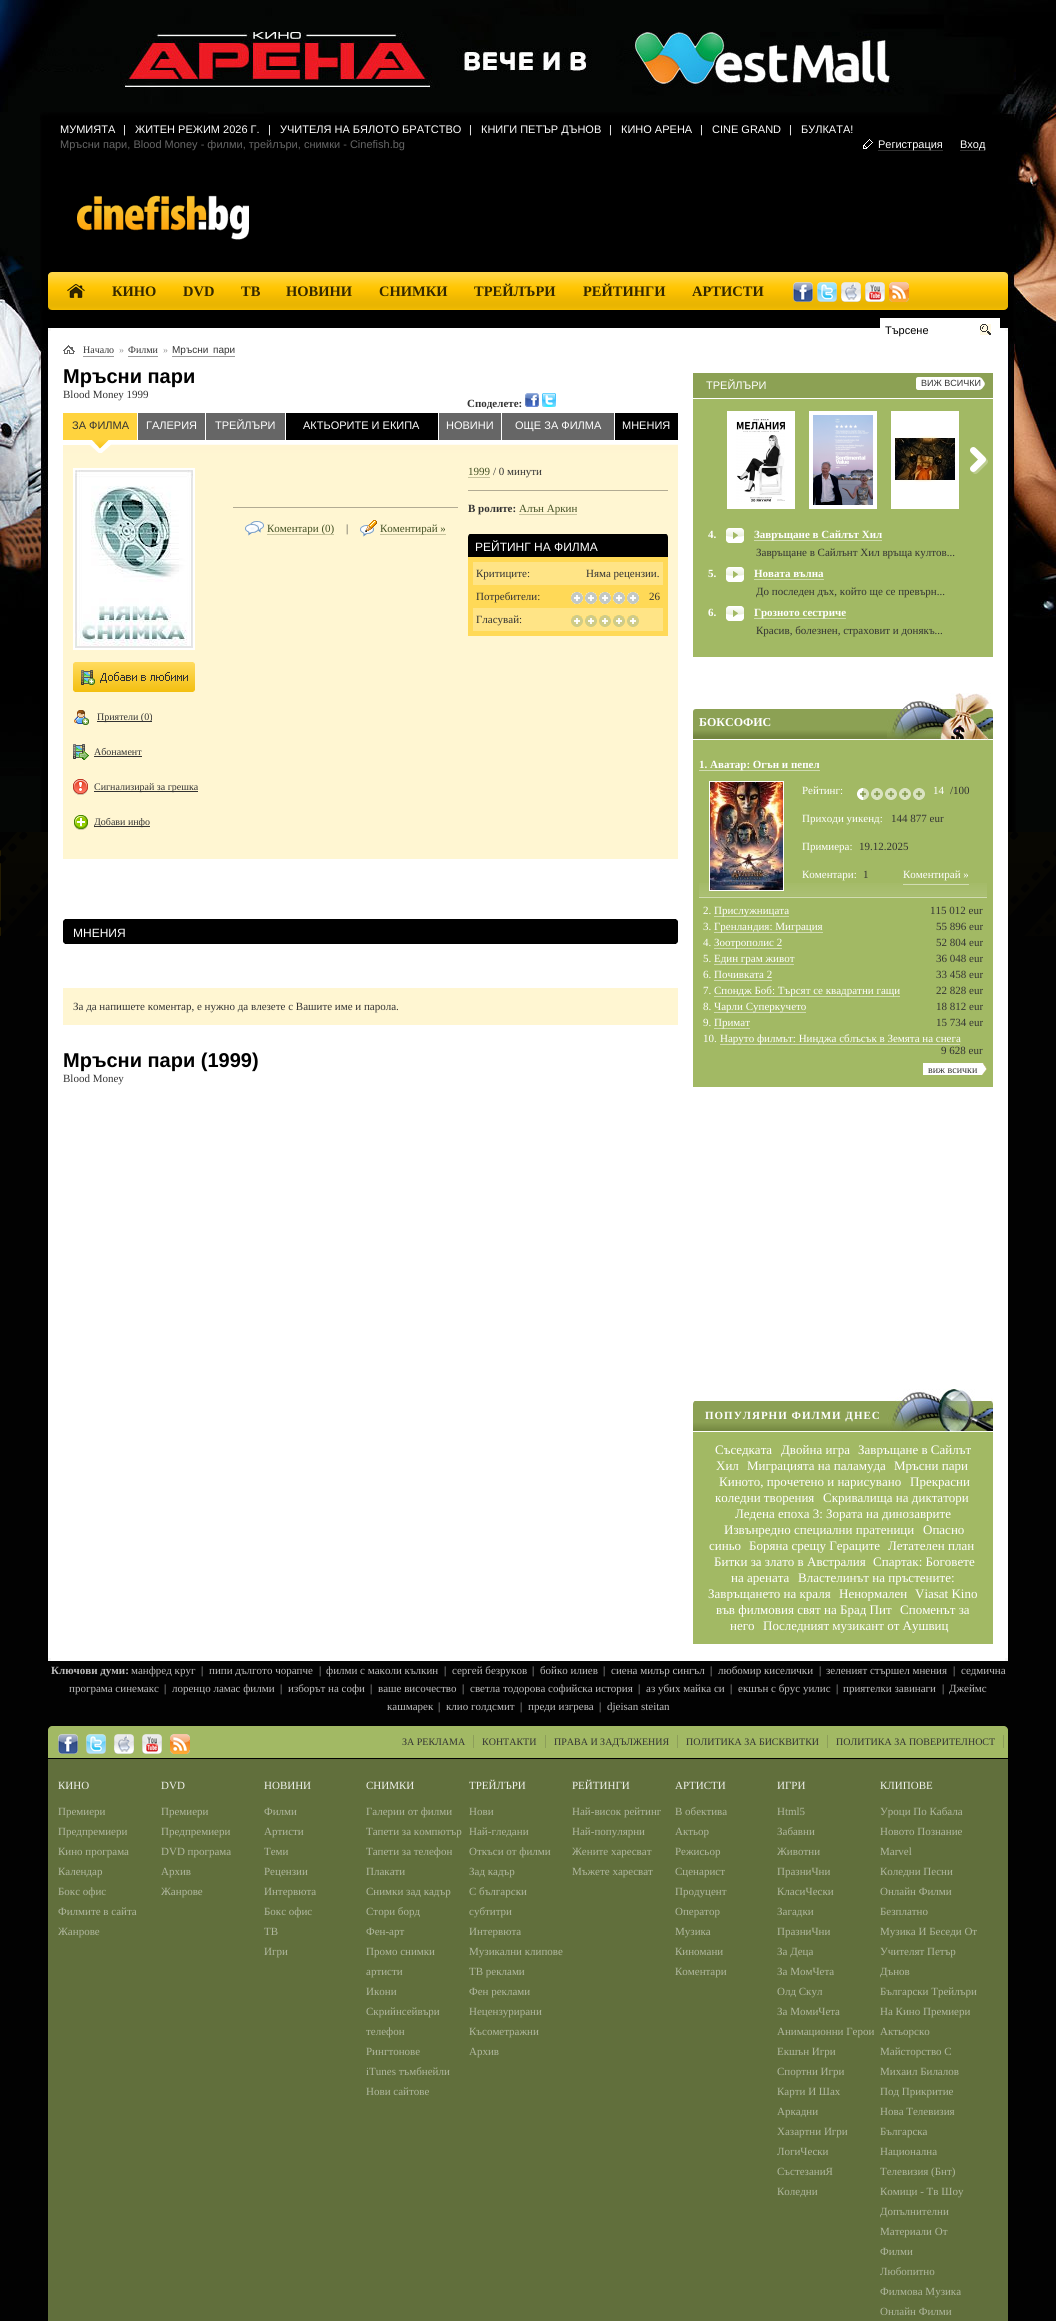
import math
import cairo

surface = cairo.ImageSurface(cairo.FORMAT_RGB24, 1056, 2321)
ctx = cairo.Context(surface)
options = cairo.FontOptions()
options.set_hint_metrics(cairo.HINT_METRICS_OFF)
options.set_hint_style(cairo.HINT_STYLE_NONE)
ctx.set_font_options(options)
ctx.set_miter_limit(4)


def spaced_text(x, y, s, letter, word):
    ctx.move_to(x, y)
    for ch in s:
        ctx.show_text(ch)
        ctx.rel_move_to(letter + word * (ch == ' '), 0)


def picture(path, x, y, w, h):
    ctx.save()
    ctx.set_source_surface(cairo.ImageSurface.create_from_png(path), x, y)
    ctx.rectangle(x, y, w, h)
    ctx.fill()
    ctx.restore()


ctx.set_source_rgb(0.008, 0.008, 0.008)
ctx.paint()
picture("img1.png", 0, 832, 1056, 104)
picture("img2.png", 0, 0, 1056, 832)
ctx.set_source_rgb(0, 0, 0)
ctx.rectangle(1003, 119, 1, 1)
ctx.fill()
ctx.select_font_face("Liberation Sans")
ctx.set_font_size(11)
ctx.set_source_rgb(1, 1, 1)
ctx.move_to(60, 133)
ctx.show_text("МУМИЯТА")
ctx.move_to(123, 133)
ctx.show_text("|")
ctx.move_to(135, 133)
ctx.show_text("ЖИТЕН РЕЖИМ 2026 Г.")
ctx.move_to(268, 133)
ctx.show_text("|")
ctx.move_to(280, 133)
ctx.show_text("УЧИТЕЛЯ НА БЯЛОТО БРАТСТВО")
ctx.move_to(469, 133)
ctx.show_text("|")
ctx.move_to(481, 133)
ctx.show_text("КНИГИ ПЕТЪР ДЪНОВ")
ctx.move_to(609, 133)
ctx.show_text("|")
ctx.move_to(621, 133)
ctx.show_text("КИНО АРЕНА")
ctx.move_to(700, 133)
ctx.show_text("|")
ctx.move_to(712, 133)
ctx.show_text("CINE GRAND")
ctx.move_to(789, 133)
ctx.show_text("|")
ctx.move_to(801, 133)
ctx.show_text("БУЛКАТА!")
ctx.set_source_rgb(0.4, 0.4, 0.4)
ctx.move_to(60, 148)
ctx.show_text("Мръсни пари, Blood Money - филми, трейлъри, снимки - Cinefish.bg")
picture("img3.png", 863, 139, 10, 10)
ctx.set_source_rgb(0.2, 0.2, 0.2)
ctx.rectangle(878, 150, 65, 1)
ctx.fill()
ctx.set_source_rgb(1, 1, 1)
ctx.move_to(878, 148)
ctx.show_text("Регистрация")
ctx.set_source_rgb(0.2, 0.2, 0.2)
ctx.rectangle(960, 150, 25, 1)
ctx.fill()
ctx.set_source_rgb(1, 1, 1)
ctx.move_to(960, 148)
ctx.show_text("Вход")
picture("img4.png", 77, 195, 172, 45)
picture("img5.png", 48, 272, 5, 38)
picture("img6.png", 53, 272, 950, 38)
picture("img7.png", 67, 284, 18, 14)
ctx.select_font_face("Liberation Serif", cairo.FONT_SLANT_NORMAL, cairo.FONT_WEIGHT_BOLD)
ctx.set_font_size(14.5)
ctx.set_source_rgb(0.204, 0.157, 0)
ctx.move_to(112, 296)
ctx.show_text("КИНО")
ctx.move_to(183, 296)
ctx.show_text("DVD")
ctx.move_to(241, 296)
ctx.show_text("ТВ")
ctx.move_to(286, 296)
ctx.show_text("НОВИНИ")
ctx.move_to(379, 296)
ctx.show_text("СНИМКИ")
ctx.move_to(474, 296)
ctx.show_text("ТРЕЙЛЪРИ")
ctx.move_to(583, 296)
ctx.show_text("РЕЙТИНГИ")
ctx.move_to(692, 296)
ctx.show_text("АРТИСТИ")
picture("img8.png", 793, 282, 20, 20)
picture("img9.png", 817, 282, 20, 20)
picture("img10.png", 841, 282, 20, 20)
picture("img11.png", 865, 282, 20, 20)
picture("img12.png", 889, 282, 20, 20)
ctx.set_source_rgb(1, 1, 1)
ctx.rectangle(880, 318, 120, 10)
ctx.fill()
ctx.rectangle(48, 328, 960, 1333)
ctx.fill()
ctx.select_font_face("Liberation Sans")
ctx.set_font_size(11)
ctx.set_source_rgb(0, 0, 0)
ctx.move_to(885, 334)
ctx.show_text("Търсене")
picture("img13.png", 980, 324, 11, 11)
picture("img14.png", 1003, 272, 5, 38)
ctx.set_source_rgb(0.969, 0.969, 0.965)
ctx.rectangle(48, 328, 3, 3)
ctx.fill()
ctx.rectangle(1005, 328, 3, 3)
ctx.fill()
picture("img15.png", 63, 345, 12, 9)
ctx.select_font_face("Liberation Serif")
ctx.set_font_size(10)
ctx.set_source_rgb(0.2, 0.2, 0.2)
ctx.move_to(83, 353)
ctx.show_text("Начало")
ctx.set_source_rgb(0.6, 0.6, 0.6)
ctx.rectangle(83, 356, 31, 1)
ctx.fill()
ctx.move_to(119, 353)
ctx.show_text("»")
ctx.set_source_rgb(0.2, 0.2, 0.2)
ctx.move_to(128, 353)
ctx.show_text("Филми")
ctx.set_source_rgb(0.6, 0.6, 0.6)
ctx.rectangle(128, 356, 30, 1)
ctx.fill()
ctx.move_to(163, 353)
ctx.show_text("»")
ctx.select_font_face("Liberation Sans")
ctx.set_source_rgb(0.2, 0.2, 0.2)
spaced_text(172, 353, "Мръсни пари", 0, 2)
ctx.set_source_rgb(0.6, 0.6, 0.6)
ctx.rectangle(172, 356, 63, 1)
ctx.fill()
ctx.select_font_face("Liberation Sans", cairo.FONT_SLANT_NORMAL, cairo.FONT_WEIGHT_BOLD)
ctx.set_font_size(20)
ctx.set_source_rgb(0, 0, 0)
ctx.move_to(63, 383)
ctx.show_text("Мръсни пари")
ctx.select_font_face("Liberation Serif")
ctx.set_font_size(11)
ctx.set_source_rgb(0.2, 0.2, 0.2)
ctx.move_to(63, 398)
ctx.show_text("Blood Money 1999")
ctx.select_font_face("Liberation Serif", cairo.FONT_SLANT_NORMAL, cairo.FONT_WEIGHT_BOLD)
ctx.move_to(467, 407)
ctx.show_text("Споделете:")
picture("img16.png", 525, 393, 14, 14)
picture("img17.png", 542, 393, 14, 14)
picture("img18.png", 63, 413, 74, 40)
ctx.select_font_face("Liberation Sans")
ctx.move_to(72, 429)
ctx.show_text("ЗА ФИЛМА")
picture("img19.png", 138, 413, 67, 40)
ctx.set_source_rgb(1, 1, 1)
ctx.move_to(146, 429)
ctx.show_text("ГАЛЕРИЯ")
picture("img20.png", 206, 413, 79, 40)
ctx.move_to(215, 429)
ctx.show_text("ТРЕЙЛЪРИ")
picture("img21.png", 286, 413, 152, 40)
ctx.move_to(303, 429)
ctx.show_text("АКТЬОРИТЕ И ЕКИПА")
picture("img22.png", 439, 413, 62, 40)
ctx.move_to(446, 429)
ctx.show_text("НОВИНИ")
picture("img23.png", 502, 413, 112, 40)
ctx.move_to(515, 429)
ctx.show_text("ОЩЕ ЗА ФИЛМА")
picture("img24.png", 615, 413, 63, 40)
ctx.move_to(622, 429)
ctx.show_text("МНЕНИЯ")
picture("img25.png", 137, 444, 1, 9)
picture("img25.png", 205, 444, 1, 9)
picture("img25.png", 285, 444, 1, 9)
picture("img25.png", 438, 444, 1, 9)
picture("img25.png", 501, 444, 1, 9)
picture("img25.png", 614, 444, 1, 9)
ctx.set_source_rgb(1, 0.961, 0.824)
ctx.rectangle(63, 453, 615, 406)
ctx.fill()
ctx.set_source_rgb(0.698, 0.671, 0.576)
ctx.rectangle(233, 507, 225, 1)
ctx.fill()
picture("img26.png", 245, 521, 19, 15)
ctx.set_source_rgb(0.78, 0.765, 0.616)
ctx.rectangle(267, 534, 67, 1)
ctx.fill()
ctx.select_font_face("Liberation Serif")
ctx.set_source_rgb(0.267, 0.318, 0.141)
ctx.move_to(267, 532)
ctx.show_text("Коментари (0)")
ctx.set_source_rgb(0.2, 0.2, 0.2)
ctx.move_to(346, 532)
ctx.show_text("|")
picture("img27.png", 360, 520, 17, 17)
ctx.set_source_rgb(0.78, 0.765, 0.616)
ctx.rectangle(380, 534, 66, 1)
ctx.fill()
ctx.set_source_rgb(0.267, 0.318, 0.141)
ctx.move_to(380, 532)
ctx.show_text("Коментирай »")
ctx.move_to(468, 475)
ctx.show_text("1999")
ctx.set_source_rgb(0.78, 0.765, 0.616)
ctx.rectangle(468, 477, 22, 1)
ctx.fill()
ctx.set_source_rgb(0.2, 0.2, 0.2)
ctx.move_to(493, 475)
ctx.show_text("/ 0 минути")
ctx.set_source_rgb(0.698, 0.671, 0.576)
ctx.rectangle(468, 490, 200, 1)
ctx.fill()
ctx.select_font_face("Liberation Serif", cairo.FONT_SLANT_NORMAL, cairo.FONT_WEIGHT_BOLD)
ctx.set_source_rgb(0.2, 0.2, 0.2)
ctx.move_to(468, 512)
ctx.show_text("В ролите:")
ctx.set_source_rgb(0.78, 0.765, 0.616)
ctx.rectangle(519, 514, 58, 1)
ctx.fill()
ctx.select_font_face("Liberation Serif")
ctx.set_source_rgb(0.267, 0.318, 0.141)
ctx.move_to(519, 512)
ctx.show_text("Алън Аркин")
picture("img28.png", 468, 534, 2, 23)
ctx.set_source_rgb(0, 0, 0)
ctx.rectangle(470, 534, 196, 23)
ctx.fill()
ctx.select_font_face("Liberation Sans")
ctx.set_font_size(12)
ctx.set_source_rgb(1, 1, 1)
ctx.move_to(475, 551)
ctx.show_text("РЕЙТИНГ НА ФИЛМА")
picture("img29.png", 666, 534, 2, 23)
ctx.set_source_rgb(1, 0.851, 0.341)
ctx.rectangle(468, 557, 200, 79)
ctx.fill()
ctx.set_source_rgb(1, 0.894, 0.525)
ctx.rectangle(473, 562, 190, 23)
ctx.fill()
ctx.select_font_face("Liberation Serif")
ctx.set_font_size(11)
ctx.set_source_rgb(0.2, 0.2, 0.2)
ctx.move_to(476, 577)
ctx.show_text("Критиците:")
ctx.move_to(586, 577)
ctx.show_text("Няма рецензии.")
ctx.move_to(476, 600)
ctx.show_text("Потребители:")
picture("img30.png", 571, 592, 6, 12)
picture("img31.png", 577, 592, 6, 12)
picture("img30.png", 585, 592, 6, 12)
picture("img31.png", 591, 592, 6, 12)
picture("img30.png", 599, 592, 6, 12)
picture("img31.png", 605, 592, 6, 12)
picture("img30.png", 613, 592, 6, 12)
picture("img31.png", 619, 592, 6, 12)
picture("img30.png", 627, 592, 6, 12)
picture("img31.png", 633, 592, 6, 12)
ctx.move_to(649, 600)
ctx.show_text("26")
ctx.set_source_rgb(1, 0.894, 0.525)
ctx.rectangle(473, 608, 190, 23)
ctx.fill()
ctx.set_source_rgb(0.2, 0.2, 0.2)
ctx.move_to(476, 623)
ctx.show_text("Гласувай:")
picture("img32.png", 571, 615, 6, 12)
picture("img33.png", 577, 615, 6, 12)
picture("img32.png", 585, 615, 6, 12)
picture("img33.png", 591, 615, 6, 12)
picture("img32.png", 599, 615, 6, 12)
picture("img33.png", 605, 615, 6, 12)
picture("img32.png", 613, 615, 6, 12)
picture("img33.png", 619, 615, 6, 12)
picture("img32.png", 627, 615, 6, 12)
picture("img33.png", 633, 615, 6, 12)
ctx.rectangle(74, 469, 120, 180)
ctx.set_source_rgb(1, 1, 1)
ctx.stroke()
picture("img34.png", 75, 470, 118, 178)
picture("img35.png", 73, 662, 122, 30)
picture("img36.png", 74, 710, 15, 15)
ctx.set_source_rgb(0.2, 0.2, 0.2)
ctx.rectangle(97, 721, 55, 1)
ctx.fill()
ctx.set_font_size(10)
ctx.move_to(97, 720)
ctx.show_text("Приятели (0)")
picture("img37.png", 73, 744, 16, 16)
ctx.move_to(94, 755)
ctx.show_text("Абонамент")
ctx.rectangle(94, 756, 48, 1)
ctx.fill()
picture("img38.png", 73, 779, 15, 16)
ctx.rectangle(94, 791, 104, 1)
ctx.fill()
ctx.move_to(94, 790)
ctx.show_text("Сигнализирай за грешка")
picture("img39.png", 74, 815, 14, 15)
ctx.rectangle(94, 826, 56, 1)
ctx.fill()
ctx.move_to(94, 825)
ctx.show_text("Добави инфо")
picture("img40.png", 63, 919, 2, 25)
ctx.set_source_rgb(0, 0, 0)
ctx.rectangle(65, 919, 611, 25)
ctx.fill()
ctx.select_font_face("Liberation Sans")
ctx.set_font_size(12)
ctx.set_source_rgb(1, 1, 1)
ctx.move_to(73, 937)
ctx.show_text("МНЕНИЯ")
picture("img41.png", 676, 919, 2, 25)
ctx.set_source_rgb(1, 0.961, 0.824)
ctx.rectangle(63, 988, 615, 37)
ctx.fill()
ctx.select_font_face("Liberation Serif")
ctx.set_font_size(11)
ctx.set_source_rgb(0.2, 0.2, 0.2)
ctx.move_to(73, 1010)
ctx.show_text("За да напишете коментар, е нужно да влезете с Вашите име и парола.")
ctx.select_font_face("Liberation Sans", cairo.FONT_SLANT_NORMAL, cairo.FONT_WEIGHT_BOLD)
ctx.set_font_size(20)
ctx.set_source_rgb(0, 0, 0)
ctx.move_to(63, 1067)
ctx.show_text("Мръсни пари (1999)")
ctx.select_font_face("Liberation Serif")
ctx.set_font_size(11)
ctx.set_source_rgb(0.2, 0.2, 0.2)
ctx.move_to(63, 1082)
ctx.show_text("Blood Money")
ctx.set_source_rgb(0.549, 0.631, 0.329)
ctx.rectangle(693, 373, 300, 25)
ctx.fill()
ctx.select_font_face("Liberation Sans")
ctx.set_source_rgb(1, 1, 1)
ctx.move_to(706, 389)
ctx.show_text("ТРЕЙЛЪРИ")
picture("img42.png", 916, 377, 69, 13)
ctx.set_font_size(9)
ctx.set_source_rgb(0.2, 0.2, 0.2)
ctx.move_to(921, 386)
ctx.show_text("ВИЖ ВСИЧКИ")
ctx.set_source_rgb(0.635, 0.725, 0.392)
ctx.rectangle(693, 399, 300, 258)
ctx.fill()
ctx.set_source_rgb(1, 1, 1)
ctx.rectangle(727, 411, 68, 98)
ctx.fill()
ctx.rectangle(809, 411, 68, 98)
ctx.fill()
ctx.rectangle(891, 411, 68, 98)
ctx.fill()
picture("img43.png", 736, 419, 49, 83)
picture("img44.png", 813, 415, 60, 90)
picture("img45.png", 895, 436, 60, 46)
picture("img46.png", 970, 447, 18, 27)
ctx.select_font_face("Liberation Serif", cairo.FONT_SLANT_NORMAL, cairo.FONT_WEIGHT_BOLD)
ctx.set_font_size(11)
ctx.move_to(708, 538)
ctx.show_text("4.")
picture("img47.png", 726, 528, 18, 15)
ctx.set_source_rgb(0.82, 0.863, 0.698)
ctx.rectangle(754, 540, 128, 1)
ctx.fill()
ctx.set_source_rgb(1, 1, 1)
ctx.move_to(754, 538)
ctx.show_text("Завръщане в Сайлът Хил")
ctx.select_font_face("Liberation Serif")
ctx.set_source_rgb(0.2, 0.2, 0.2)
ctx.move_to(756, 556)
ctx.show_text("Завръщане в Сайлънт Хил връща култов...")
ctx.select_font_face("Liberation Serif", cairo.FONT_SLANT_NORMAL, cairo.FONT_WEIGHT_BOLD)
ctx.set_source_rgb(1, 1, 1)
ctx.move_to(708, 577)
ctx.show_text("5.")
picture("img47.png", 726, 567, 18, 15)
ctx.move_to(754, 577)
ctx.show_text("Новата вълна")
ctx.set_source_rgb(0.82, 0.863, 0.698)
ctx.rectangle(754, 579, 70, 1)
ctx.fill()
ctx.select_font_face("Liberation Serif")
ctx.set_source_rgb(0.2, 0.2, 0.2)
ctx.move_to(756, 595)
ctx.show_text("До последен дъх, който ще се превърн...")
ctx.select_font_face("Liberation Serif", cairo.FONT_SLANT_NORMAL, cairo.FONT_WEIGHT_BOLD)
ctx.set_source_rgb(1, 1, 1)
ctx.move_to(708, 616)
ctx.show_text("6.")
picture("img47.png", 726, 606, 18, 15)
ctx.set_source_rgb(0.82, 0.863, 0.698)
ctx.rectangle(754, 618, 92, 1)
ctx.fill()
ctx.set_source_rgb(1, 1, 1)
ctx.move_to(754, 616)
ctx.show_text("Грозното сестриче")
ctx.select_font_face("Liberation Serif")
ctx.set_source_rgb(0.2, 0.2, 0.2)
ctx.move_to(756, 634)
ctx.show_text("Красив, болезнен, страховит и донякъ...")
picture("img48.png", 693, 709, 194, 30)
ctx.select_font_face("Liberation Serif", cairo.FONT_SLANT_NORMAL, cairo.FONT_WEIGHT_BOLD)
ctx.set_font_size(12)
ctx.set_source_rgb(1, 1, 1)
ctx.move_to(699, 726)
ctx.show_text("БОКСОФИС")
picture("img49.png", 887, 693, 106, 47)
ctx.set_source_rgb(0.635, 0.725, 0.392)
ctx.rectangle(693, 740, 300, 347)
ctx.fill()
picture("img50.png", 699, 883, 288, 14)
ctx.set_source_rgb(0.82, 0.863, 0.698)
ctx.rectangle(699, 897, 288, 1)
ctx.fill()
ctx.rectangle(699, 770, 121, 1)
ctx.fill()
ctx.set_font_size(11)
ctx.set_source_rgb(1, 1, 1)
ctx.move_to(699, 768)
ctx.show_text("1. Аватар: Огън и пепел")
ctx.rectangle(709.5, 781.5, 74, 109)
ctx.set_line_width(1)
ctx.stroke()
picture("img51.png", 710, 782, 73, 108)
ctx.select_font_face("Liberation Serif")
ctx.move_to(802, 794)
ctx.show_text("Рейтинг:")
picture("img52.png", 857, 788, 6, 12)
picture("img53.png", 863, 788, 6, 12)
picture("img54.png", 871, 788, 6, 12)
picture("img53.png", 877, 788, 6, 12)
picture("img54.png", 885, 788, 6, 12)
picture("img53.png", 891, 788, 6, 12)
picture("img54.png", 899, 788, 6, 12)
picture("img53.png", 905, 788, 6, 12)
picture("img54.png", 913, 788, 6, 12)
picture("img53.png", 919, 788, 6, 12)
ctx.move_to(933, 794)
ctx.show_text("14")
ctx.set_source_rgb(0.2, 0.2, 0.2)
ctx.move_to(950, 794)
ctx.show_text("/100")
ctx.set_source_rgb(1, 1, 1)
ctx.move_to(802, 822)
ctx.show_text("Приходи уикенд:")
ctx.set_source_rgb(0.2, 0.2, 0.2)
ctx.move_to(891, 822)
ctx.show_text("144 877 eur")
ctx.set_source_rgb(1, 1, 1)
ctx.move_to(802, 850)
ctx.show_text("Примиера:")
ctx.set_source_rgb(0.2, 0.2, 0.2)
ctx.move_to(859, 850)
ctx.show_text("19.12.2025")
ctx.set_source_rgb(1, 1, 1)
ctx.move_to(802, 878)
ctx.show_text("Коментари:")
ctx.set_source_rgb(0.2, 0.2, 0.2)
ctx.move_to(863, 878)
ctx.show_text("1")
ctx.set_source_rgb(0.82, 0.863, 0.698)
ctx.rectangle(903, 884, 66, 1)
ctx.fill()
ctx.set_source_rgb(1, 1, 1)
ctx.move_to(903, 878)
ctx.show_text("Коментирай »")
ctx.move_to(703, 914)
ctx.show_text("2.")
ctx.set_source_rgb(0.82, 0.863, 0.698)
ctx.rectangle(714, 916, 75, 1)
ctx.fill()
ctx.set_source_rgb(1, 1, 1)
ctx.move_to(714, 914)
ctx.show_text("Прислужницата")
ctx.set_source_rgb(0.2, 0.2, 0.2)
ctx.move_to(930, 914)
ctx.show_text("115 012 eur")
ctx.set_source_rgb(1, 1, 1)
ctx.move_to(703, 930)
ctx.show_text("3.")
ctx.set_source_rgb(0.82, 0.863, 0.698)
ctx.rectangle(714, 932, 109, 1)
ctx.fill()
ctx.set_source_rgb(1, 1, 1)
ctx.move_to(714, 930)
ctx.show_text("Гренландия: Миграция")
ctx.set_source_rgb(0.2, 0.2, 0.2)
ctx.move_to(936, 930)
ctx.show_text("55 896 eur")
ctx.set_source_rgb(1, 1, 1)
ctx.move_to(703, 946)
ctx.show_text("4.")
ctx.set_source_rgb(0.82, 0.863, 0.698)
ctx.rectangle(714, 948, 68, 1)
ctx.fill()
ctx.set_source_rgb(1, 1, 1)
ctx.move_to(714, 946)
ctx.show_text("Зоотрополис 2")
ctx.set_source_rgb(0.2, 0.2, 0.2)
ctx.move_to(936, 946)
ctx.show_text("52 804 eur")
ctx.set_source_rgb(1, 1, 1)
ctx.move_to(703, 962)
ctx.show_text("5.")
ctx.set_source_rgb(0.82, 0.863, 0.698)
ctx.rectangle(714, 964, 80, 1)
ctx.fill()
ctx.set_source_rgb(1, 1, 1)
ctx.move_to(714, 962)
ctx.show_text("Един грам живот")
ctx.set_source_rgb(0.2, 0.2, 0.2)
ctx.move_to(936, 962)
ctx.show_text("36 048 eur")
ctx.set_source_rgb(1, 1, 1)
ctx.move_to(703, 978)
ctx.show_text("6. Почивката 2")
ctx.set_source_rgb(0.2, 0.2, 0.2)
ctx.move_to(936, 978)
ctx.show_text("33 458 eur")
ctx.set_source_rgb(0.82, 0.863, 0.698)
ctx.rectangle(714, 980, 58, 1)
ctx.fill()
ctx.set_source_rgb(1, 1, 1)
ctx.move_to(703, 994)
ctx.show_text("7.")
ctx.set_source_rgb(0.82, 0.863, 0.698)
ctx.rectangle(714, 996, 186, 1)
ctx.fill()
ctx.set_source_rgb(1, 1, 1)
ctx.move_to(714, 994)
ctx.show_text("Спондж Боб: Търсят се квадратни гащи")
ctx.set_source_rgb(0.2, 0.2, 0.2)
ctx.move_to(936, 994)
ctx.show_text("22 828 eur")
ctx.set_source_rgb(1, 1, 1)
ctx.move_to(703, 1010)
ctx.show_text("8.")
ctx.set_source_rgb(0.82, 0.863, 0.698)
ctx.rectangle(714, 1012, 92, 1)
ctx.fill()
ctx.set_source_rgb(1, 1, 1)
ctx.move_to(714, 1010)
ctx.show_text("Чарли Суперкучето")
ctx.set_source_rgb(0.2, 0.2, 0.2)
ctx.move_to(936, 1010)
ctx.show_text("18 812 eur")
ctx.set_source_rgb(1, 1, 1)
ctx.move_to(703, 1026)
ctx.show_text("9.")
ctx.set_source_rgb(0.82, 0.863, 0.698)
ctx.rectangle(714, 1028, 36, 1)
ctx.fill()
ctx.set_source_rgb(1, 1, 1)
ctx.move_to(714, 1026)
ctx.show_text("Примат")
ctx.set_source_rgb(0.2, 0.2, 0.2)
ctx.move_to(936, 1026)
ctx.show_text("15 734 eur")
ctx.set_source_rgb(1, 1, 1)
ctx.move_to(703, 1042)
ctx.show_text("10.")
ctx.set_source_rgb(0.82, 0.863, 0.698)
ctx.rectangle(720, 1044, 240, 1)
ctx.fill()
ctx.set_source_rgb(1, 1, 1)
ctx.move_to(720, 1042)
ctx.show_text("Наруто филмът: Нинджа сблъсък в Земята на снега")
ctx.set_source_rgb(0.2, 0.2, 0.2)
ctx.move_to(941, 1054)
ctx.show_text("9 628 eur")
picture("img55.png", 923, 1063, 64, 12)
ctx.set_font_size(10)
ctx.move_to(928, 1073)
ctx.show_text("виж всички")
picture("img56.png", 693, 1401, 2, 30)
picture("img57.png", 695, 1401, 192, 30)
ctx.select_font_face("Liberation Serif", cairo.FONT_SLANT_NORMAL, cairo.FONT_WEIGHT_BOLD)
ctx.set_font_size(11)
ctx.set_source_rgb(1, 1, 1)
spaced_text(705, 1419, "ПОПУЛЯРНИ ФИЛМИ ДНЕС", 1, 0)
picture("img58.png", 887, 1389, 106, 43)
ctx.set_source_rgb(0.635, 0.725, 0.392)
ctx.rectangle(693, 1432, 300, 212)
ctx.fill()
ctx.select_font_face("Liberation Serif")
ctx.set_font_size(13)
ctx.set_source_rgb(1, 1, 1)
ctx.move_to(715, 1454)
ctx.show_text("Съседкатa")
ctx.move_to(781, 1454)
ctx.show_text("Двойна игра")
ctx.move_to(858, 1454)
ctx.show_text("Завръщане в Сайлът")
ctx.move_to(716, 1470)
ctx.show_text("Хил")
ctx.move_to(747, 1470)
ctx.show_text("Миграцията на паламуда")
ctx.move_to(894, 1470)
ctx.show_text("Мръсни пари")
ctx.move_to(719, 1486)
ctx.show_text("Киното, прочетено и нарисувано")
ctx.move_to(910, 1486)
ctx.show_text("Прекрасни")
ctx.move_to(715, 1502)
ctx.show_text("коледни творения")
ctx.move_to(823, 1502)
ctx.show_text("Скривалища на диктатори")
ctx.move_to(735, 1518)
ctx.show_text("Ледена епоха 3: Зората на динозаврите")
ctx.move_to(724, 1534)
ctx.show_text("Извънредно специални пратеници")
ctx.move_to(923, 1534)
ctx.show_text("Опасно")
ctx.move_to(709, 1550)
ctx.show_text("синьо")
ctx.move_to(749, 1550)
ctx.show_text("Боряна срещу Гераците")
ctx.move_to(888, 1550)
ctx.show_text("Летателен план")
ctx.move_to(714, 1566)
ctx.show_text("Битки за злато в Австралия")
ctx.move_to(873, 1566)
ctx.show_text("Спартак: Боговете")
ctx.move_to(731, 1582)
ctx.show_text("на арената")
ctx.move_to(798, 1582)
ctx.show_text("Властелинът на пръстените:")
ctx.move_to(708, 1598)
ctx.show_text("Завръщането на краля")
ctx.move_to(839, 1598)
ctx.show_text("Ненормален")
ctx.move_to(915, 1598)
ctx.show_text("Viasat Kino")
ctx.move_to(716, 1614)
ctx.show_text("във филмовия свят на Брад Пит")
ctx.move_to(900, 1614)
ctx.show_text("Споменът за")
ctx.move_to(730, 1630)
ctx.show_text("него")
ctx.move_to(763, 1630)
ctx.show_text("Последният музикант от Аушвиц")
ctx.set_source_rgb(0.965, 0.965, 0.965)
ctx.rectangle(48, 1658, 3, 3)
ctx.fill()
ctx.rectangle(1005, 1658, 3, 3)
ctx.fill()
ctx.select_font_face("Liberation Serif", cairo.FONT_SLANT_NORMAL, cairo.FONT_WEIGHT_BOLD)
ctx.set_font_size(11)
ctx.set_source_rgb(0.749, 0.749, 0.749)
ctx.move_to(51, 1674)
ctx.show_text("Ключови думи:")
ctx.select_font_face("Liberation Serif")
ctx.move_to(131, 1674)
ctx.show_text("манфред круг")
ctx.move_to(201, 1674)
ctx.show_text("|")
ctx.move_to(209, 1674)
ctx.show_text("пипи дългото чорапче")
ctx.move_to(319, 1674)
ctx.show_text("|")
ctx.move_to(326, 1674)
ctx.show_text("филми с маколи кълкин")
ctx.move_to(444, 1674)
ctx.show_text("|")
ctx.move_to(452, 1674)
ctx.show_text("сергей безруков")
ctx.move_to(532, 1674)
ctx.show_text("|")
ctx.move_to(540, 1674)
ctx.show_text("бойко илиев")
ctx.move_to(603, 1674)
ctx.show_text("|")
ctx.move_to(611, 1674)
ctx.show_text("сиена милър сингъл")
ctx.move_to(710, 1674)
ctx.show_text("|")
ctx.move_to(718, 1674)
ctx.show_text("любомир киселички")
ctx.move_to(819, 1674)
ctx.show_text("|")
ctx.move_to(826, 1674)
ctx.show_text("зеленият стършел мнения")
ctx.move_to(953, 1674)
ctx.show_text("|")
ctx.move_to(961, 1674)
ctx.show_text("седмична")
ctx.move_to(69, 1692)
ctx.show_text("програма синемакс")
ctx.move_to(164, 1692)
ctx.show_text("|")
ctx.move_to(172, 1692)
ctx.show_text("лоренцо ламас филми")
ctx.move_to(280, 1692)
ctx.show_text("|")
ctx.move_to(288, 1692)
ctx.show_text("изборът на софи")
ctx.move_to(370, 1692)
ctx.show_text("|")
ctx.move_to(378, 1692)
ctx.show_text("ваше височество")
ctx.move_to(462, 1692)
ctx.show_text("|")
ctx.move_to(470, 1692)
ctx.show_text("светла тодорова софийска история")
ctx.move_to(638, 1692)
ctx.show_text("|")
ctx.move_to(646, 1692)
ctx.show_text("аз убих майка си")
ctx.move_to(730, 1692)
ctx.show_text("|")
ctx.move_to(738, 1692)
ctx.show_text("екшън с брус уилис")
ctx.move_to(836, 1692)
ctx.show_text("|")
ctx.move_to(843, 1692)
ctx.show_text("приятелки завинаги")
ctx.move_to(942, 1692)
ctx.show_text("|")
ctx.move_to(949, 1692)
ctx.show_text("Джеймс")
ctx.move_to(387, 1710)
ctx.show_text("кашмарек")
ctx.move_to(438, 1710)
ctx.show_text("|")
ctx.move_to(446, 1710)
ctx.show_text("клио голдсмит")
ctx.move_to(520, 1710)
ctx.show_text("|")
ctx.move_to(528, 1710)
ctx.show_text("преди изгрева")
ctx.move_to(599, 1710)
ctx.show_text("|")
ctx.move_to(607, 1710)
ctx.show_text("djeisan steitan")
ctx.set_source_rgb(0.635, 0.725, 0.392)
ctx.new_path()
ctx.move_to(52, 1726)
ctx.line_to(1004, 1726)
ctx.curve_to(1006, 1726, 1008, 1728, 1008, 1730)
ctx.line_to(1008, 1758)
ctx.line_to(48, 1758)
ctx.line_to(48, 1730)
ctx.curve_to(48, 1728, 50, 1726, 52, 1726)
ctx.close_path()
ctx.fill()
picture("img59.png", 58, 1734, 20, 20)
picture("img60.png", 86, 1734, 20, 20)
picture("img61.png", 114, 1734, 20, 20)
picture("img62.png", 142, 1734, 20, 20)
picture("img63.png", 170, 1734, 20, 20)
ctx.set_font_size(10)
ctx.set_source_rgb(0.2, 0.2, 0.2)
ctx.move_to(402, 1745)
ctx.show_text("ЗА РЕКЛАМА")
ctx.set_source_rgb(0.549, 0.62, 0.353)
ctx.rectangle(473, 1735, 1, 13)
ctx.fill()
ctx.set_source_rgb(0.2, 0.2, 0.2)
ctx.move_to(482, 1745)
ctx.show_text("КОНТАКТИ")
ctx.set_source_rgb(0.549, 0.62, 0.353)
ctx.rectangle(545, 1735, 1, 13)
ctx.fill()
ctx.set_source_rgb(0.2, 0.2, 0.2)
ctx.move_to(554, 1745)
ctx.show_text("ПРАВА И ЗАДЪЛЖЕНИЯ")
ctx.set_source_rgb(0.549, 0.62, 0.353)
ctx.rectangle(677, 1735, 1, 13)
ctx.fill()
ctx.set_source_rgb(0.2, 0.2, 0.2)
ctx.move_to(686, 1745)
ctx.show_text("ПОЛИТИКА ЗА БИСКВИТКИ")
ctx.set_source_rgb(0.549, 0.62, 0.353)
ctx.rectangle(827, 1735, 1, 13)
ctx.fill()
ctx.set_source_rgb(0.2, 0.2, 0.2)
ctx.move_to(836, 1745)
ctx.show_text("ПОЛИТИКА ЗА ПОВЕРИТЕЛНОСТ")
ctx.set_source_rgb(0.549, 0.62, 0.353)
ctx.rectangle(1003, 1735, 1, 13)
ctx.fill()
ctx.set_source_rgb(0.38, 0.435, 0.235)
ctx.rectangle(48, 1759, 960, 562)
ctx.fill()
ctx.set_font_size(11)
ctx.set_source_rgb(0.941, 0.945, 0.925)
ctx.move_to(58, 1789)
ctx.show_text("КИНО")
ctx.set_source_rgb(0.69, 0.718, 0.62)
ctx.move_to(58, 1815)
ctx.show_text("Премиери")
ctx.move_to(58, 1835)
ctx.show_text("Предпремиери")
ctx.move_to(58, 1855)
ctx.show_text("Кино програма")
ctx.move_to(58, 1875)
ctx.show_text("Календар")
ctx.move_to(58, 1895)
ctx.show_text("Бокс офис")
ctx.move_to(58, 1915)
ctx.show_text("Филмите в сайта")
ctx.move_to(58, 1935)
ctx.show_text("Жанрове")
ctx.set_source_rgb(0.941, 0.945, 0.925)
ctx.move_to(161, 1789)
ctx.show_text("DVD")
ctx.set_source_rgb(0.69, 0.718, 0.62)
ctx.move_to(161, 1815)
ctx.show_text("Премиери")
ctx.move_to(161, 1835)
ctx.show_text("Предпремиери")
ctx.move_to(161, 1855)
ctx.show_text("DVD програма")
ctx.move_to(161, 1875)
ctx.show_text("Архив")
ctx.move_to(161, 1895)
ctx.show_text("Жанрове")
ctx.set_source_rgb(0.941, 0.945, 0.925)
ctx.move_to(264, 1789)
ctx.show_text("НОВИНИ")
ctx.set_source_rgb(0.69, 0.718, 0.62)
ctx.move_to(264, 1815)
ctx.show_text("Филми")
ctx.move_to(264, 1835)
ctx.show_text("Артисти")
ctx.move_to(264, 1855)
ctx.show_text("Теми")
ctx.move_to(264, 1875)
ctx.show_text("Рецензии")
ctx.move_to(264, 1895)
ctx.show_text("Интервюта")
ctx.move_to(264, 1915)
ctx.show_text("Бокс офис")
ctx.move_to(264, 1935)
ctx.show_text("ТВ")
ctx.move_to(264, 1955)
ctx.show_text("Игри")
ctx.set_source_rgb(0.941, 0.945, 0.925)
ctx.move_to(366, 1789)
ctx.show_text("СНИМКИ")
ctx.set_source_rgb(0.69, 0.718, 0.62)
ctx.move_to(366, 1815)
ctx.show_text("Галерии от филми")
ctx.move_to(366, 1835)
ctx.show_text("Тапети за компютър")
ctx.move_to(366, 1855)
ctx.show_text("Тапети за телефон")
ctx.move_to(366, 1875)
ctx.show_text("Плакати")
ctx.move_to(366, 1895)
ctx.show_text("Снимки зад кадър")
ctx.move_to(366, 1915)
ctx.show_text("Стори борд")
ctx.move_to(366, 1935)
ctx.show_text("Фен-арт")
ctx.move_to(366, 1955)
ctx.show_text("Промо снимки")
ctx.move_to(366, 1975)
ctx.show_text("артисти")
ctx.move_to(366, 1995)
ctx.show_text("Икони")
ctx.move_to(366, 2015)
ctx.show_text("Скрийнсейвъри")
ctx.move_to(366, 2035)
ctx.show_text("телефон")
ctx.move_to(366, 2055)
ctx.show_text("Рингтонове")
ctx.move_to(366, 2075)
ctx.show_text("iTunes тъмбнейли")
ctx.move_to(366, 2095)
ctx.show_text("Нови сайтове")
ctx.set_source_rgb(0.941, 0.945, 0.925)
ctx.move_to(469, 1789)
ctx.show_text("ТРЕЙЛЪРИ")
ctx.set_source_rgb(0.69, 0.718, 0.62)
ctx.move_to(469, 1815)
ctx.show_text("Нови")
ctx.move_to(469, 1835)
ctx.show_text("Най-гледани")
ctx.move_to(469, 1855)
ctx.show_text("Откъси от филми")
ctx.move_to(469, 1875)
ctx.show_text("Зад кадър")
ctx.move_to(469, 1895)
ctx.show_text("С български")
ctx.move_to(469, 1915)
ctx.show_text("субтитри")
ctx.move_to(469, 1935)
ctx.show_text("Интервюта")
ctx.move_to(469, 1955)
ctx.show_text("Музикални клипове")
ctx.move_to(469, 1975)
ctx.show_text("ТВ реклами")
ctx.move_to(469, 1995)
ctx.show_text("Фен реклами")
ctx.move_to(469, 2015)
ctx.show_text("Нецензурирани")
ctx.move_to(469, 2035)
ctx.show_text("Късометражни")
ctx.move_to(469, 2055)
ctx.show_text("Архив")
ctx.set_source_rgb(0.941, 0.945, 0.925)
ctx.move_to(572, 1789)
ctx.show_text("РЕЙТИНГИ")
ctx.set_source_rgb(0.69, 0.718, 0.62)
ctx.move_to(572, 1815)
ctx.show_text("Най-висок рейтинг")
ctx.move_to(572, 1835)
ctx.show_text("Най-популярни")
ctx.move_to(572, 1855)
ctx.show_text("Жените харесват")
ctx.move_to(572, 1875)
ctx.show_text("Мъжете харесват")
ctx.set_source_rgb(0.941, 0.945, 0.925)
ctx.move_to(675, 1789)
ctx.show_text("АРТИСТИ")
ctx.set_source_rgb(0.69, 0.718, 0.62)
ctx.move_to(675, 1815)
ctx.show_text("В обектива")
ctx.move_to(675, 1835)
ctx.show_text("Актьор")
ctx.move_to(675, 1855)
ctx.show_text("Режисьор")
ctx.move_to(675, 1875)
ctx.show_text("Сценарист")
ctx.move_to(675, 1895)
ctx.show_text("Продуцент")
ctx.move_to(675, 1915)
ctx.show_text("Оператор")
ctx.move_to(675, 1935)
ctx.show_text("Музика")
ctx.move_to(675, 1955)
ctx.show_text("Киномани")
ctx.move_to(675, 1975)
ctx.show_text("Коментари")
ctx.set_source_rgb(0.941, 0.945, 0.925)
ctx.move_to(777, 1789)
ctx.show_text("ИГРИ")
ctx.set_source_rgb(0.69, 0.718, 0.62)
ctx.move_to(777, 1815)
ctx.show_text("Html5")
ctx.move_to(777, 1835)
ctx.show_text("Забавни")
ctx.move_to(777, 1855)
ctx.show_text("Животни")
ctx.move_to(777, 1875)
ctx.show_text("ПразниЧни")
ctx.move_to(777, 1895)
ctx.show_text("КласиЧески")
ctx.move_to(777, 1915)
ctx.show_text("Загадки")
ctx.move_to(777, 1935)
ctx.show_text("ПразниЧни")
ctx.move_to(777, 1955)
ctx.show_text("За Деца")
ctx.move_to(777, 1975)
ctx.show_text("За МомЧета")
ctx.move_to(777, 1995)
ctx.show_text("Олд Скул")
ctx.move_to(777, 2015)
ctx.show_text("За МомиЧета")
ctx.move_to(777, 2035)
ctx.show_text("Анимационни Герои")
ctx.move_to(777, 2055)
ctx.show_text("Екшън Игри")
ctx.move_to(777, 2075)
ctx.show_text("Спортни Игри")
ctx.move_to(777, 2095)
ctx.show_text("Карти И Шах")
ctx.move_to(777, 2115)
ctx.show_text("Аркадни")
ctx.move_to(777, 2135)
ctx.show_text("Хазартни Игри")
ctx.move_to(777, 2155)
ctx.show_text("ЛогиЧески")
ctx.move_to(777, 2175)
ctx.show_text("СъстезаниЯ")
ctx.move_to(777, 2195)
ctx.show_text("Коледни")
ctx.set_source_rgb(0.941, 0.945, 0.925)
ctx.move_to(880, 1789)
ctx.show_text("КЛИПОВЕ")
ctx.set_source_rgb(0.69, 0.718, 0.62)
ctx.move_to(880, 1815)
ctx.show_text("Уроци По Кабала")
ctx.move_to(880, 1835)
ctx.show_text("Новото Познание")
ctx.move_to(880, 1855)
ctx.show_text("Marvel")
ctx.move_to(880, 1875)
ctx.show_text("Коледни Песни")
ctx.move_to(880, 1895)
ctx.show_text("Онлайн Филми")
ctx.move_to(880, 1915)
ctx.show_text("Безплатно")
ctx.move_to(880, 1935)
ctx.show_text("Музика И Беседи От")
ctx.move_to(880, 1955)
ctx.show_text("Учителят Петър")
ctx.move_to(880, 1975)
ctx.show_text("Дънов")
ctx.move_to(880, 1995)
ctx.show_text("Български Трейлъри")
ctx.move_to(880, 2015)
ctx.show_text("На Кино Премиери")
ctx.move_to(880, 2035)
ctx.show_text("Актьорско")
ctx.move_to(880, 2055)
ctx.show_text("Майсторство С")
ctx.move_to(880, 2075)
ctx.show_text("Михаил Билалов")
ctx.move_to(880, 2095)
ctx.show_text("Под Прикритие")
ctx.move_to(880, 2115)
ctx.show_text("Нова Телевизия")
ctx.move_to(880, 2135)
ctx.show_text("Българска")
ctx.move_to(880, 2155)
ctx.show_text("Национална")
ctx.move_to(880, 2175)
ctx.show_text("Телевизия (Бнт)")
ctx.move_to(880, 2195)
ctx.show_text("Комици - Тв Шоу")
ctx.move_to(880, 2215)
ctx.show_text("Допълнителни")
ctx.move_to(880, 2235)
ctx.show_text("Материали От")
ctx.move_to(880, 2255)
ctx.show_text("Филми")
ctx.move_to(880, 2275)
ctx.show_text("Любопитно")
ctx.move_to(880, 2295)
ctx.show_text("Филмова Музика")
ctx.move_to(880, 2315)
ctx.show_text("Онлайн Филми")
surface.write_to_png("page.png")
